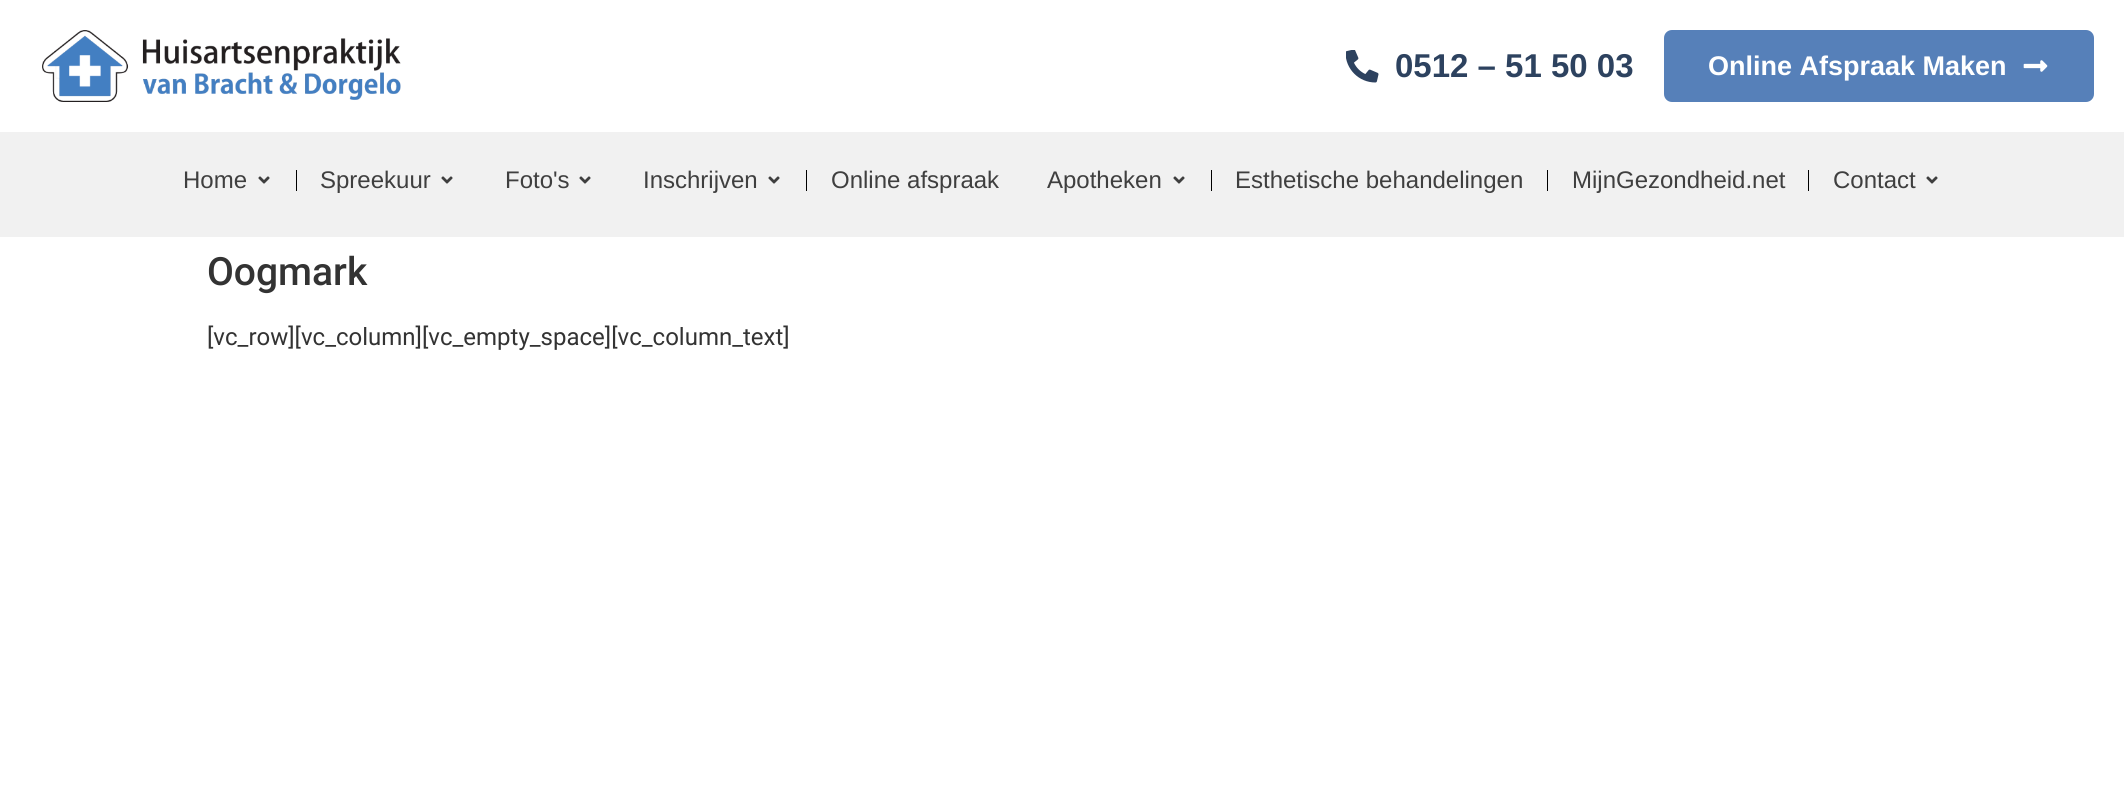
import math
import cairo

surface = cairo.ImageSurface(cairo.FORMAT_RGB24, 2124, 788)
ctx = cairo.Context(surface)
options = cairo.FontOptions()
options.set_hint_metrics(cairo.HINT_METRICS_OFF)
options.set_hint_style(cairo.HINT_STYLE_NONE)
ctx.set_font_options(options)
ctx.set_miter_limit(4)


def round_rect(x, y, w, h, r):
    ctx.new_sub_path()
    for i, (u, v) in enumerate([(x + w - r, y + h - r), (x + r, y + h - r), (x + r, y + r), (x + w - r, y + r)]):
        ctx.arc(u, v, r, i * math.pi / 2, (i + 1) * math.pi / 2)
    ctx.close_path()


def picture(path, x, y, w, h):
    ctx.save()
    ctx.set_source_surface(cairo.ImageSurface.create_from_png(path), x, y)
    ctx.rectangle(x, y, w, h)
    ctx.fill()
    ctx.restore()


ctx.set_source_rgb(1, 1, 1)
ctx.paint()
picture("img1.png", 42, 30, 359, 72)
picture("img2.png", 1346, 50, 33, 33)
ctx.select_font_face("Liberation Sans", cairo.FONT_SLANT_NORMAL, cairo.FONT_WEIGHT_BOLD)
ctx.set_font_size(33)
ctx.set_source_rgb(0.176, 0.259, 0.373)
ctx.move_to(1395, 77)
ctx.show_text("0512 – 51 50 03")
ctx.set_source_rgb(0.337, 0.502, 0.725)
round_rect(1664, 30, 430, 72, 8)
ctx.fill()
ctx.set_font_size(27)
ctx.set_source_rgb(1, 1, 1)
ctx.move_to(1708, 75)
ctx.show_text("Online Afspraak Maken")
picture("img3.png", 2023, 60, 25, 12)
ctx.set_source_rgb(0.945, 0.945, 0.945)
ctx.rectangle(0, 132, 2124, 105)
ctx.fill()
ctx.select_font_face("Liberation Sans")
ctx.set_font_size(24)
ctx.set_source_rgb(0.247, 0.247, 0.247)
ctx.move_to(183, 188)
ctx.show_text("Home")
picture("img4.png", 258, 176, 12, 8)
ctx.set_source_rgb(0, 0, 0)
ctx.rectangle(296, 170, 1, 21)
ctx.fill()
ctx.set_source_rgb(0.247, 0.247, 0.247)
ctx.move_to(320, 188)
ctx.show_text("Spreekuur")
picture("img4.png", 441, 176, 12, 8)
ctx.move_to(505, 188)
ctx.show_text("Foto's")
picture("img4.png", 579, 176, 12, 8)
ctx.move_to(643, 188)
ctx.show_text("Inschrijven")
picture("img4.png", 768, 176, 12, 8)
ctx.set_source_rgb(0, 0, 0)
ctx.rectangle(806, 170, 1, 21)
ctx.fill()
ctx.set_source_rgb(0.247, 0.247, 0.247)
ctx.move_to(831, 188)
ctx.show_text("Online afspraak")
ctx.move_to(1047, 188)
ctx.show_text("Apotheken")
picture("img4.png", 1173, 176, 12, 8)
ctx.set_source_rgb(0, 0, 0)
ctx.rectangle(1211, 170, 1, 21)
ctx.fill()
ctx.set_source_rgb(0.247, 0.247, 0.247)
ctx.move_to(1235, 188)
ctx.show_text("Esthetische behandelingen")
ctx.set_source_rgb(0, 0, 0)
ctx.rectangle(1547, 170, 1, 21)
ctx.fill()
ctx.set_source_rgb(0.247, 0.247, 0.247)
ctx.move_to(1572, 188)
ctx.show_text("MijnGezondheid.net")
ctx.set_source_rgb(0, 0, 0)
ctx.rectangle(1808, 170, 1, 21)
ctx.fill()
ctx.set_source_rgb(0.247, 0.247, 0.247)
ctx.move_to(1833, 188)
ctx.show_text("Contact")
picture("img4.png", 1926, 176, 12, 8)
ctx.select_font_face("Roboto Medium")
ctx.set_font_size(39)
ctx.set_source_rgb(0.2, 0.2, 0.2)
ctx.move_to(207, 285)
ctx.show_text("Oogmark")
ctx.select_font_face("Roboto")
ctx.set_font_size(24)
ctx.move_to(207, 345)
ctx.show_text("[vc_row][vc_column][vc_empty_space][vc_column_text]")
surface.write_to_png("page.png")
